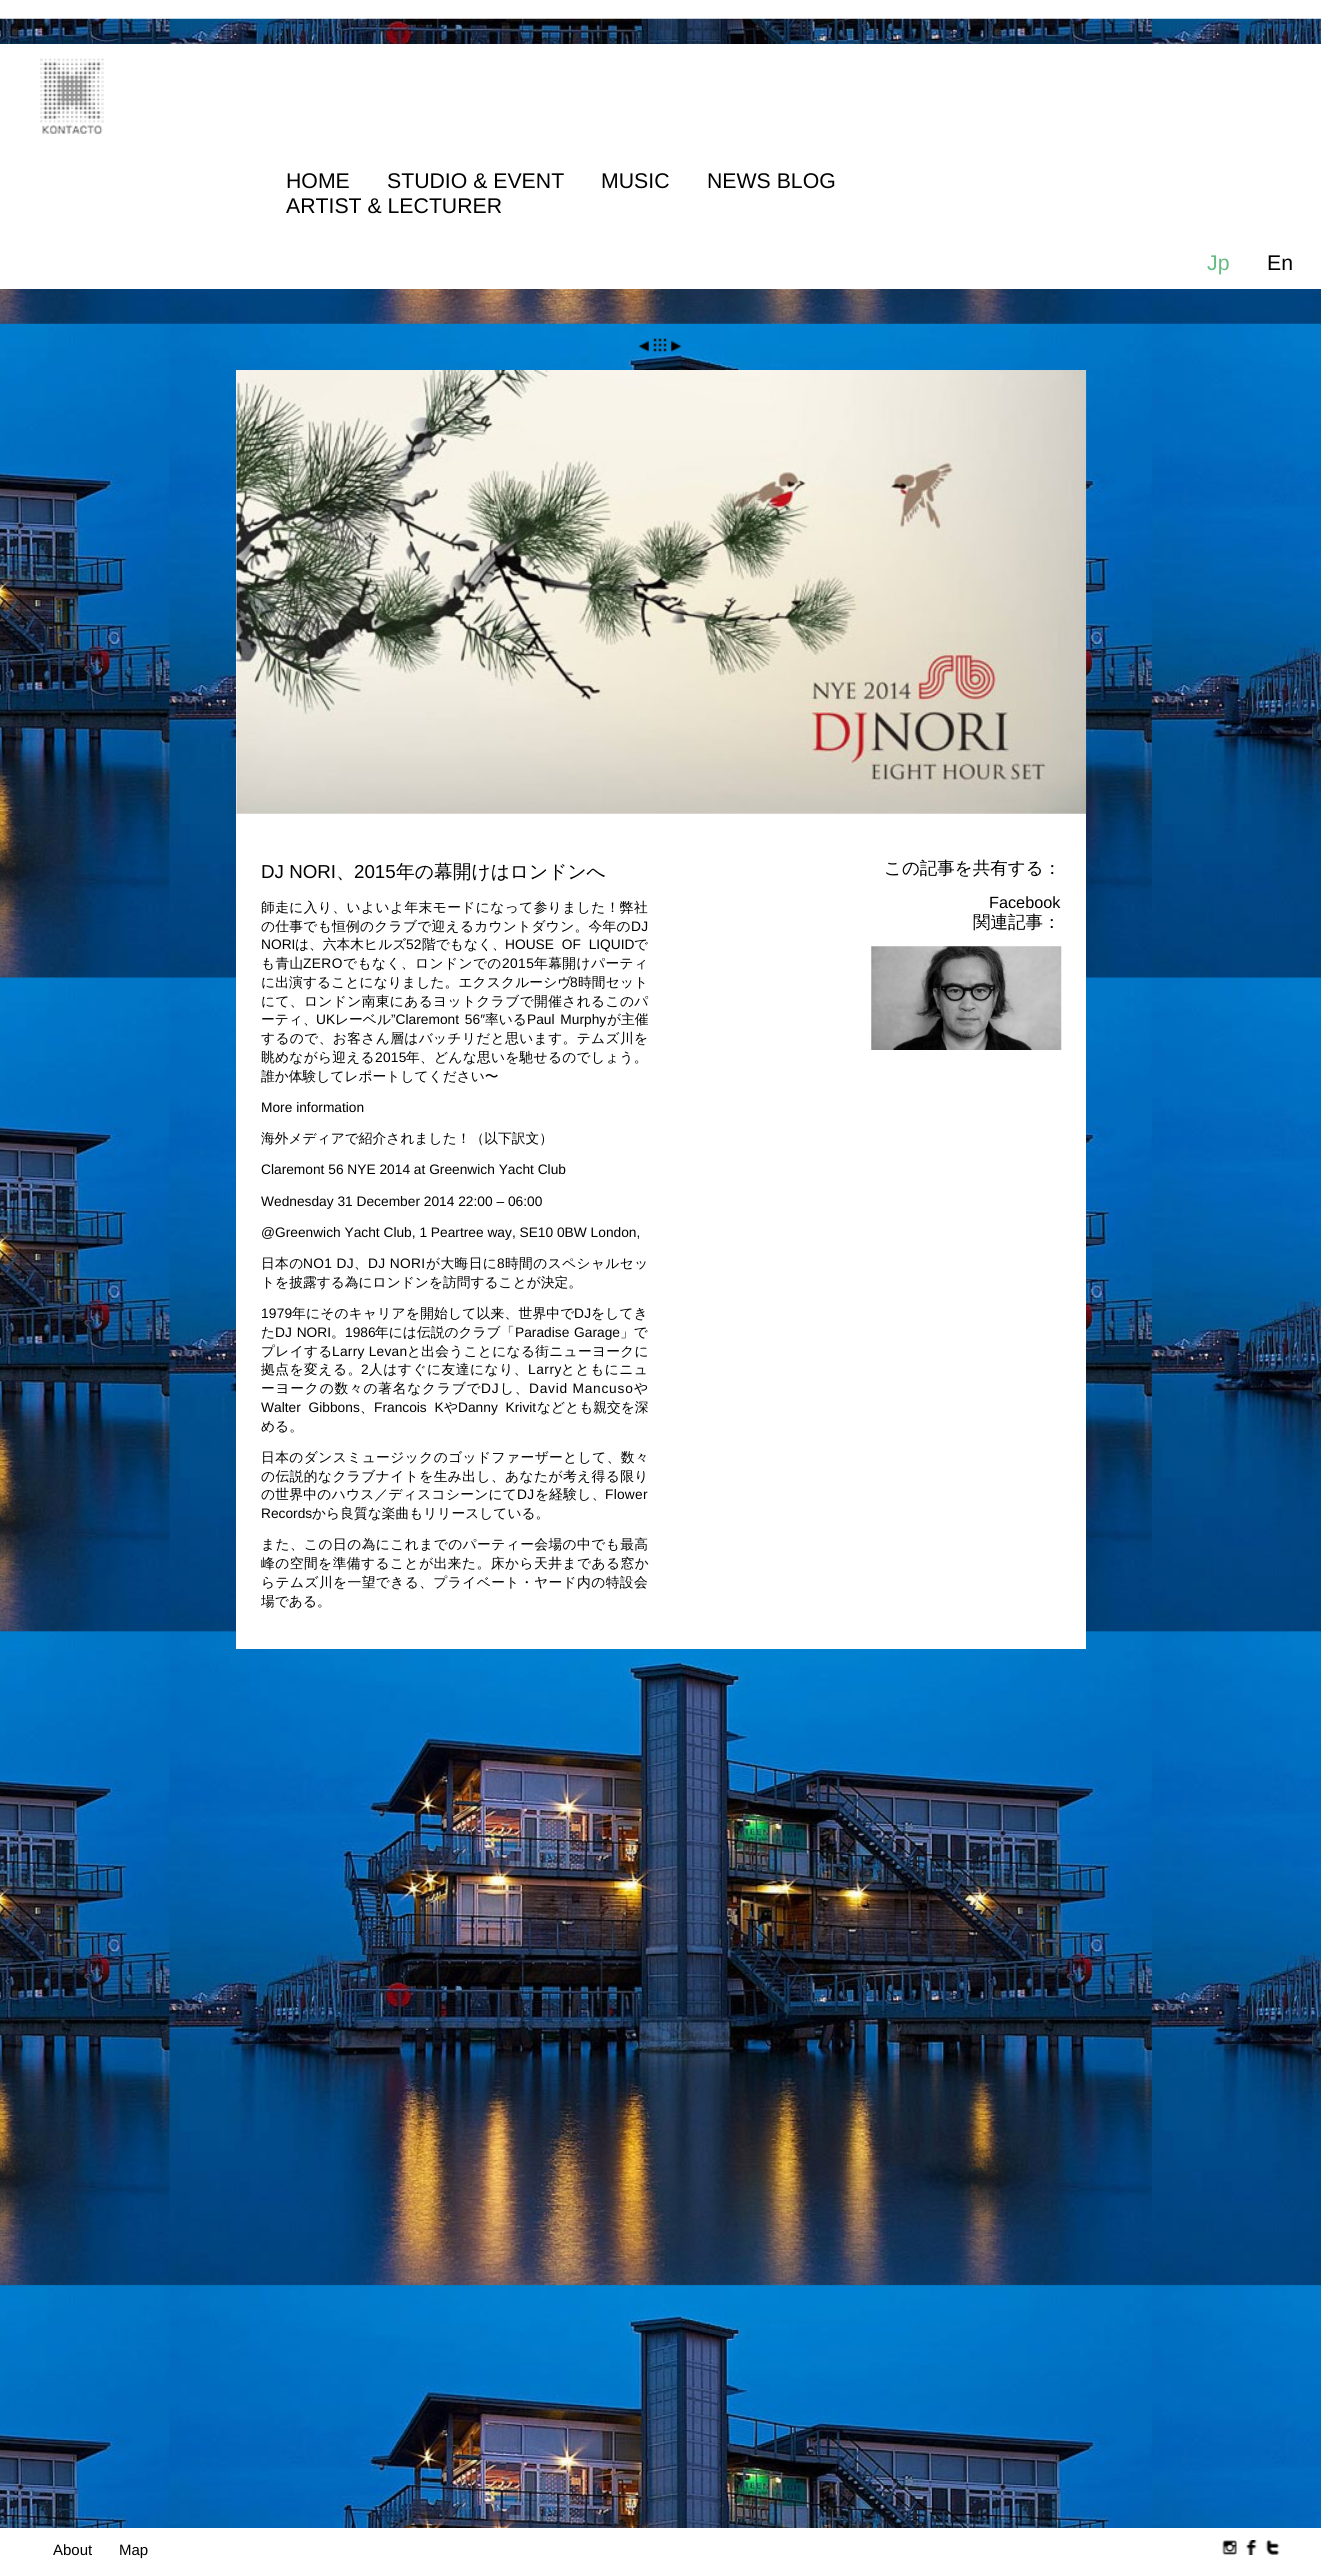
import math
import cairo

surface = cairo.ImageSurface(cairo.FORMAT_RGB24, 1321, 2571)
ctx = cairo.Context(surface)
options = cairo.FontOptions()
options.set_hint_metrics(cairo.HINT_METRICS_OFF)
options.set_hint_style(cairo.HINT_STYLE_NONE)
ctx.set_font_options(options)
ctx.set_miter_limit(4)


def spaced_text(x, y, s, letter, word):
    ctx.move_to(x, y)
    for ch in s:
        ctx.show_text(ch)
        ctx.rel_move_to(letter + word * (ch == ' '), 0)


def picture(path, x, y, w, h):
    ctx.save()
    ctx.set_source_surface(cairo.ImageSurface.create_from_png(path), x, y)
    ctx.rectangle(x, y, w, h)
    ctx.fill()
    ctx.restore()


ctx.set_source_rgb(1, 1, 1)
ctx.paint()
picture("img1.png", 0, 18, 1321, 2510)
ctx.set_source_rgb(1, 1, 1)
ctx.rectangle(0, 44, 1321, 245)
ctx.fill()
picture("img2.png", 40, 58, 64, 77)
ctx.select_font_face("Liberation Sans")
ctx.set_font_size(21.25)
ctx.set_source_rgb(0, 0, 0)
ctx.move_to(286, 188)
ctx.show_text("HOME")
ctx.move_to(387, 188)
ctx.show_text("STUDIO & EVENT")
ctx.move_to(601, 188)
ctx.show_text("MUSIC")
ctx.move_to(707, 188)
ctx.show_text("NEWS BLOG")
ctx.move_to(286, 213)
ctx.show_text("ARTIST & LECTURER")
ctx.set_source_rgb(0.388, 0.733, 0.506)
ctx.move_to(1207, 270)
ctx.show_text("Jp")
ctx.set_source_rgb(0, 0, 0)
ctx.move_to(1267, 270)
ctx.show_text("En")
picture("img3.png", 638, 341, 11, 11)
picture("img4.png", 653, 338, 14, 14)
picture("img5.png", 671, 341, 11, 11)
ctx.set_source_rgb(1, 1, 1)
ctx.rectangle(236, 370, 850, 1279)
ctx.fill()
picture("img6.png", 236, 370, 851, 444)
ctx.set_font_size(18.75)
ctx.set_source_rgb(0, 0, 0)
ctx.move_to(261, 878)
ctx.show_text("DJ NORI")
ctx.select_font_face("WenQuanYi Zen Hei Medium")
ctx.move_to(336, 878)
ctx.show_text("、")
ctx.select_font_face("Liberation Sans")
ctx.move_to(354, 878)
ctx.show_text("2015")
ctx.select_font_face("WenQuanYi Zen Hei Medium")
ctx.move_to(396, 878)
ctx.show_text("年の幕開けはロンドンへ")
ctx.set_font_size(13.75)
spaced_text(261, 912, "師走に入り、いよいよ年末モードになって参りました！弊社", 0.4, 0)
spaced_text(261, 931, "の仕事でも恒例のクラブで迎えるカウントダウン。今年の", 0.25, 0)
ctx.select_font_face("Liberation Sans")
spaced_text(631, 931, "DJ", 0.25, 0)
ctx.move_to(261, 949)
ctx.show_text("NORI")
ctx.select_font_face("WenQuanYi Zen Hei Medium")
ctx.move_to(295, 949)
ctx.show_text("は、六本木ヒルズ")
ctx.select_font_face("Liberation Sans")
ctx.move_to(406, 949)
ctx.show_text("52")
ctx.select_font_face("WenQuanYi Zen Hei Medium")
ctx.move_to(422, 949)
ctx.show_text("階でもなく、")
ctx.select_font_face("Liberation Sans")
spaced_text(505, 949, "HOUSE OF LIQUID", 0, 4)
ctx.select_font_face("WenQuanYi Zen Hei Medium")
ctx.move_to(634, 949)
ctx.show_text("で")
spaced_text(261, 968, "も青山", 0.4, 0)
ctx.select_font_face("Liberation Sans")
spaced_text(303, 968, "ZERO", 0.4, 0)
ctx.select_font_face("WenQuanYi Zen Hei Medium")
spaced_text(343, 968, "でもなく、ロンドンでの", 0.4, 0)
ctx.select_font_face("Liberation Sans")
spaced_text(502, 968, "2015", 0.4, 0)
ctx.select_font_face("WenQuanYi Zen Hei Medium")
spaced_text(534, 968, "年幕開けパーティ", 0.4, 0)
spaced_text(261, 987, "に出演することになりました。エクスクルーシヴ", 0.1, 0)
ctx.select_font_face("Liberation Sans")
spaced_text(570, 987, "8", 0.1, 0)
ctx.select_font_face("WenQuanYi Zen Hei Medium")
spaced_text(578, 987, "時間セット", 0.1, 0)
spaced_text(261, 1006, "にて、ロンドン南東にあるヨットクラブで開催されるこのパ", 0.35, 0)
ctx.move_to(261, 1024)
ctx.show_text("ーティ、")
ctx.select_font_face("Liberation Sans")
ctx.move_to(316, 1024)
ctx.show_text("UK")
ctx.select_font_face("WenQuanYi Zen Hei Medium")
ctx.move_to(335, 1024)
ctx.show_text("レーベル")
ctx.select_font_face("Liberation Sans")
spaced_text(391, 1024, "”Claremont 56″", 0, 2)
ctx.select_font_face("WenQuanYi Zen Hei Medium")
ctx.move_to(485, 1024)
ctx.show_text("率いる")
ctx.select_font_face("Liberation Sans")
spaced_text(527, 1024, "Paul Murphy", 0, 2)
ctx.select_font_face("WenQuanYi Zen Hei Medium")
ctx.move_to(607, 1024)
ctx.show_text("が主催")
spaced_text(261, 1043, "するので、お客さん層はバッチリだと思います。テムズ川を", 0.35, 0)
spaced_text(261, 1062, "眺めながら迎える", 0.25, 0)
ctx.select_font_face("Liberation Sans")
spaced_text(375, 1062, "2015", 0.25, 0)
ctx.select_font_face("WenQuanYi Zen Hei Medium")
spaced_text(406, 1062, "年、どんな思いを馳せるのでしょう。", 0.25, 0)
ctx.move_to(261, 1081)
ctx.show_text("誰か体験してレポートしてください〜")
ctx.select_font_face("Liberation Sans")
ctx.move_to(261, 1112)
ctx.show_text("More information")
ctx.select_font_face("WenQuanYi Zen Hei Medium")
ctx.move_to(261, 1143)
ctx.show_text("海外メディアで紹介されました！（以下訳文）")
ctx.select_font_face("Liberation Sans")
ctx.move_to(261, 1174)
ctx.show_text("Claremont 56 NYE 2014 at Greenwich Yacht Club")
ctx.move_to(261, 1206)
ctx.show_text("Wednesday 31 December 2014 22:00 – 06:00")
ctx.move_to(261, 1237)
ctx.show_text("@Greenwich Yacht Club, 1 Peartree way, SE10 0BW London,")
ctx.select_font_face("WenQuanYi Zen Hei Medium")
spaced_text(261, 1268, "日本の", 0.35, 0)
ctx.select_font_face("Liberation Sans")
spaced_text(303, 1268, "NO1 DJ", 0.35, 0)
ctx.select_font_face("WenQuanYi Zen Hei Medium")
spaced_text(354, 1268, "、", 0.35, 0)
ctx.select_font_face("Liberation Sans")
spaced_text(368, 1268, "DJ NORI", 0.35, 0)
ctx.select_font_face("WenQuanYi Zen Hei Medium")
spaced_text(426, 1268, "が大晦日に", 0.35, 0)
ctx.select_font_face("Liberation Sans")
spaced_text(497, 1268, "8", 0.35, 0)
ctx.select_font_face("WenQuanYi Zen Hei Medium")
spaced_text(505, 1268, "時間のスペシャルセッ", 0.35, 0)
ctx.move_to(261, 1287)
ctx.show_text("トを披露する為にロンドンを訪問することが決定。")
ctx.select_font_face("Liberation Sans")
spaced_text(261, 1318, "1979", 0.2, 0)
ctx.select_font_face("WenQuanYi Zen Hei Medium")
spaced_text(292, 1318, "年にそのキャリアを開始して以来、世界中で", 0.2, 0)
ctx.select_font_face("Liberation Sans")
spaced_text(574, 1318, "DJ", 0.2, 0)
ctx.select_font_face("WenQuanYi Zen Hei Medium")
spaced_text(591, 1318, "をしてき", 0.2, 0)
ctx.move_to(261, 1337)
ctx.show_text("た")
ctx.select_font_face("Liberation Sans")
spaced_text(275, 1337, "DJ NORI", 0, 1)
ctx.select_font_face("WenQuanYi Zen Hei Medium")
ctx.move_to(331, 1337)
ctx.show_text("。")
ctx.select_font_face("Liberation Sans")
ctx.move_to(345, 1337)
ctx.show_text("1986")
ctx.select_font_face("WenQuanYi Zen Hei Medium")
ctx.move_to(375, 1337)
ctx.show_text("年には伝説のクラブ「")
ctx.select_font_face("Liberation Sans")
spaced_text(515, 1337, "Paradise Garage", 0, 1)
ctx.select_font_face("WenQuanYi Zen Hei Medium")
ctx.move_to(620, 1337)
ctx.show_text("」で")
spaced_text(261, 1356, "プレイする", 0.25, 0)
ctx.select_font_face("Liberation Sans")
spaced_text(332, 1356, "Larry Levan", 0.25, 0)
ctx.select_font_face("WenQuanYi Zen Hei Medium")
spaced_text(407, 1356, "と出会うことになる街ニューヨークに", 0.25, 0)
spaced_text(261, 1374, "拠点を変える。", 0.5, 0)
ctx.select_font_face("Liberation Sans")
spaced_text(361, 1374, "2", 0.5, 0)
ctx.select_font_face("WenQuanYi Zen Hei Medium")
spaced_text(369, 1374, "人はすぐに友達になり、", 0.5, 0)
ctx.select_font_face("Liberation Sans")
spaced_text(528, 1374, "Larry", 0.5, 0)
ctx.select_font_face("WenQuanYi Zen Hei Medium")
spaced_text(561, 1374, "とともにニュ", 0.5, 0)
spaced_text(261, 1393, "ーヨークの数々の著名なクラブで", 0.75, 0)
ctx.select_font_face("Liberation Sans")
spaced_text(481, 1393, "DJ", 0.75, 0)
ctx.select_font_face("WenQuanYi Zen Hei Medium")
spaced_text(500, 1393, "し、", 0.75, 0)
ctx.select_font_face("Liberation Sans")
spaced_text(529, 1393, "David Mancuso", 0.75, 0)
ctx.select_font_face("WenQuanYi Zen Hei Medium")
spaced_text(634, 1393, "や", 0.75, 0)
ctx.select_font_face("Liberation Sans")
spaced_text(261, 1412, "Walter Gibbons", 0, 4)
ctx.select_font_face("WenQuanYi Zen Hei Medium")
ctx.move_to(360, 1412)
ctx.show_text("、")
ctx.select_font_face("Liberation Sans")
spaced_text(374, 1412, "Francois K", 0, 4)
ctx.select_font_face("WenQuanYi Zen Hei Medium")
ctx.move_to(444, 1412)
ctx.show_text("や")
ctx.select_font_face("Liberation Sans")
spaced_text(458, 1412, "Danny Krivit", 0, 4)
ctx.select_font_face("WenQuanYi Zen Hei Medium")
ctx.move_to(537, 1412)
ctx.show_text("などとも親交を深")
ctx.move_to(261, 1431)
ctx.show_text("める。")
spaced_text(261, 1462, "日本のダンスミュージックのゴッドファーザーとして、数々", 0.4, 0)
spaced_text(261, 1481, "の伝説的なクラブナイトを生み出し、あなたが考え得る限り", 0.4, 0)
spaced_text(261, 1499, "の世界中のハウス／ディスコシーンにて", 0.25, 0)
ctx.select_font_face("Liberation Sans")
spaced_text(517, 1499, "DJ", 0.25, 0)
ctx.select_font_face("WenQuanYi Zen Hei Medium")
spaced_text(535, 1499, "を経験し、", 0.25, 0)
ctx.select_font_face("Liberation Sans")
spaced_text(605, 1499, "Flower", 0.25, 0)
ctx.move_to(261, 1518)
ctx.show_text("Records")
ctx.select_font_face("WenQuanYi Zen Hei Medium")
ctx.move_to(312, 1518)
ctx.show_text("から良質な楽曲もリリースしている。")
spaced_text(261, 1549, "また、この日の為にこれまでのパーティー会場の中でも最高", 0.4, 0)
spaced_text(261, 1568, "峰の空間を準備することが出来た。床から天井まである窓か", 0.45, 0)
spaced_text(261, 1587, "らテムズ川を一望できる、プライベート・ヤード内の特設会", 0.4, 0)
ctx.move_to(261, 1606)
ctx.show_text("場である。")
ctx.set_font_size(17.5)
ctx.move_to(884, 874)
ctx.show_text("この記事を共有する：")
ctx.select_font_face("Liberation Sans")
ctx.set_font_size(16.25)
ctx.move_to(989, 908)
ctx.show_text("Facebook")
ctx.select_font_face("WenQuanYi Zen Hei Medium")
ctx.set_font_size(17.5)
ctx.move_to(973, 928)
ctx.show_text("関連記事：")
picture("img7.png", 871, 946, 191, 104)
ctx.select_font_face("Liberation Sans")
ctx.set_font_size(15)
ctx.move_to(53, 2555)
ctx.show_text("About")
ctx.move_to(119, 2555)
ctx.show_text("Map")
picture("img8.png", 1222, 2540, 15, 15)
picture("img9.png", 1245, 2540, 12, 15)
picture("img10.png", 1265, 2540, 15, 15)
surface.write_to_png("page.png")
